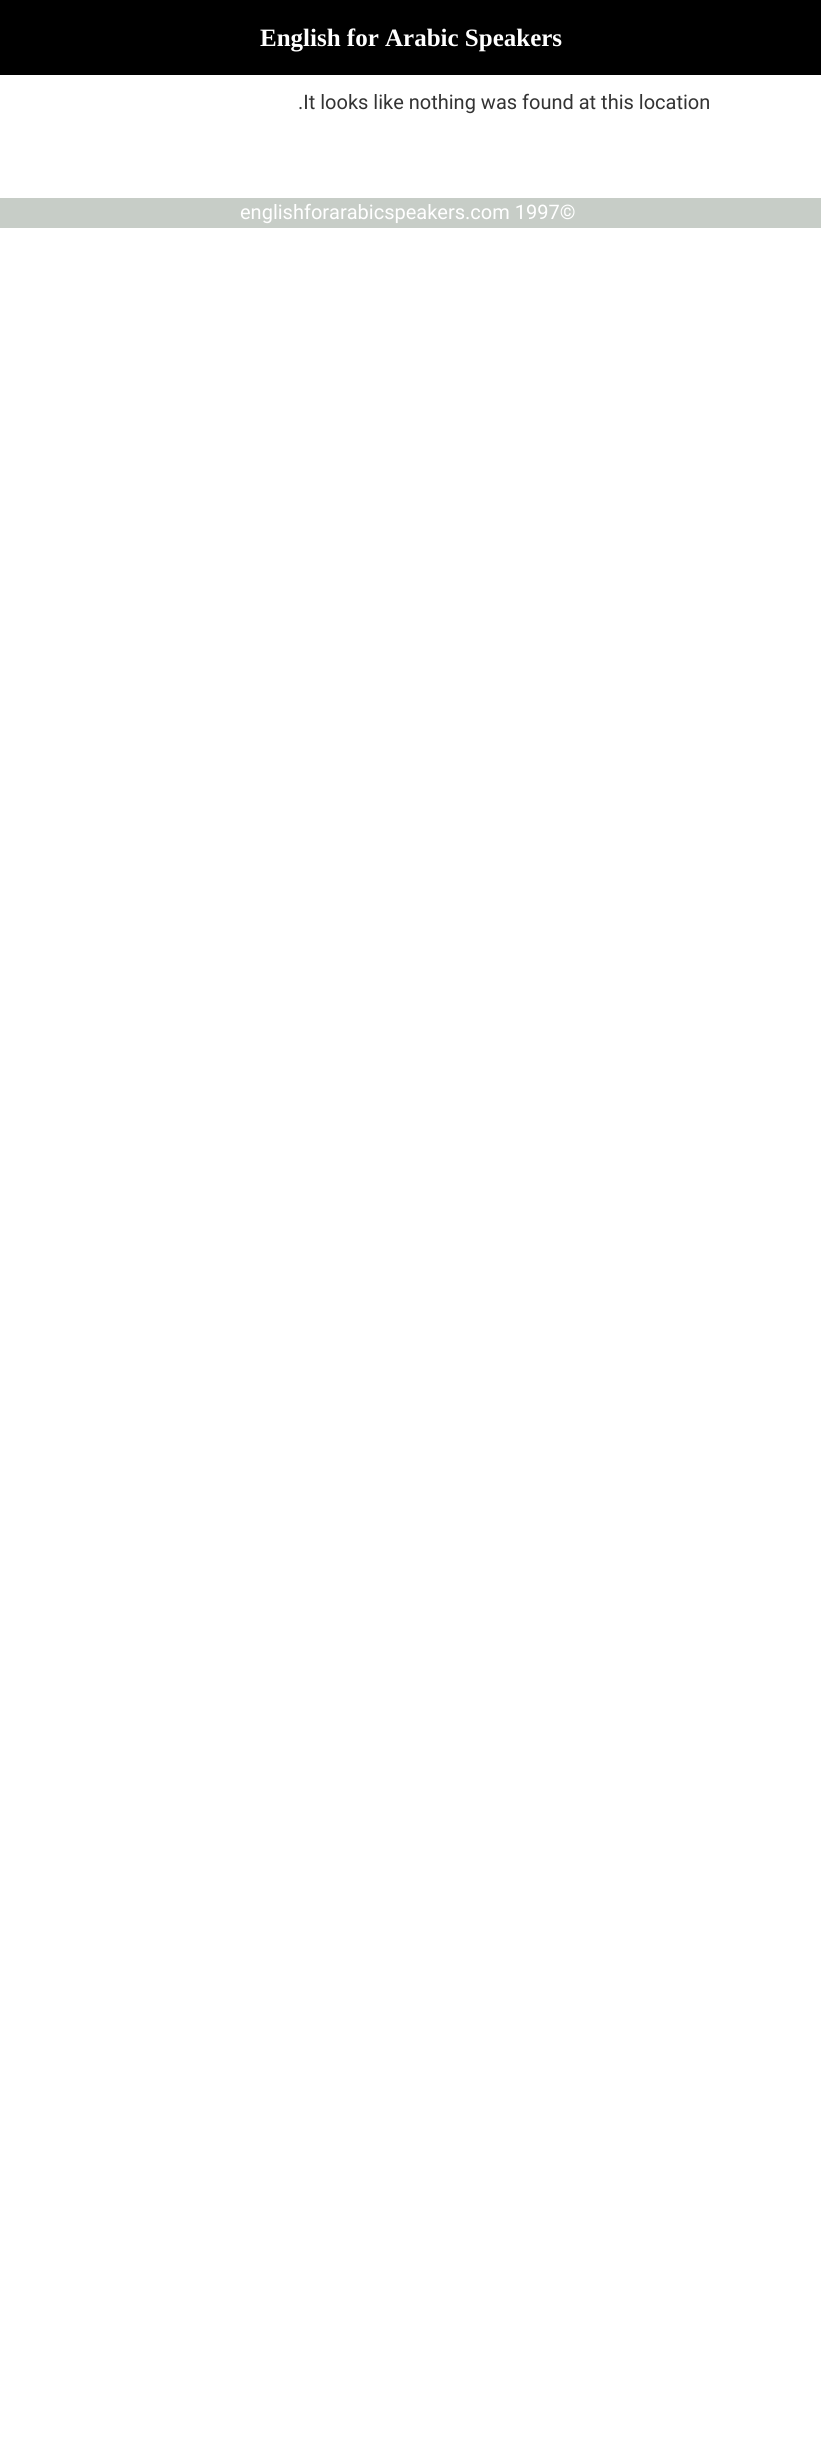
import math
import cairo

surface = cairo.ImageSurface(cairo.FORMAT_RGB24, 821, 2452)
ctx = cairo.Context(surface)
options = cairo.FontOptions()
options.set_hint_metrics(cairo.HINT_METRICS_OFF)
options.set_hint_style(cairo.HINT_STYLE_NONE)
ctx.set_font_options(options)
ctx.set_miter_limit(4)


ctx.set_source_rgb(1, 1, 1)
ctx.paint()
ctx.set_source_rgb(0, 0, 0)
ctx.rectangle(0, 0, 821, 75)
ctx.fill()
ctx.select_font_face("Liberation Serif", cairo.FONT_SLANT_NORMAL, cairo.FONT_WEIGHT_BOLD)
ctx.set_font_size(25)
ctx.set_source_rgb(1, 1, 1)
ctx.move_to(260, 46)
ctx.show_text("English for Arabic Speakers")
ctx.select_font_face("Roboto")
ctx.set_font_size(20)
ctx.set_source_rgb(0.2, 0.2, 0.2)
ctx.move_to(298, 109)
ctx.show_text(".It looks like nothing was found at this location")
ctx.set_source_rgb(0.78, 0.804, 0.78)
ctx.rectangle(0, 198, 821, 30)
ctx.fill()
ctx.set_source_rgb(1, 1, 1)
ctx.move_to(240, 219)
ctx.show_text("englishforarabicspeakers.com 1997©")
surface.write_to_png("page.png")
